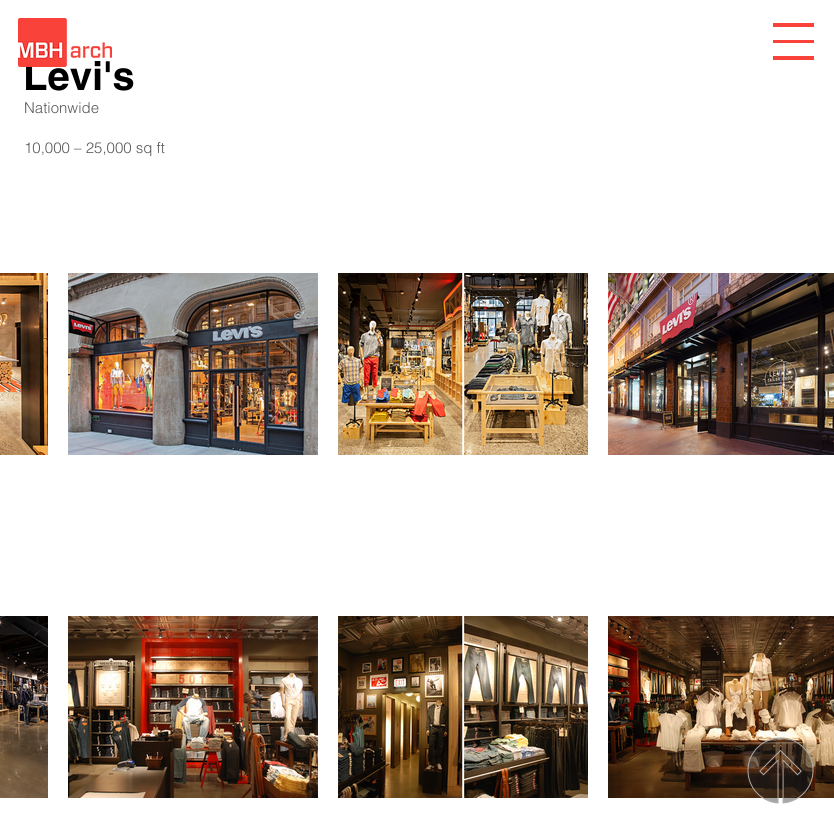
import math
import cairo

surface = cairo.ImageSurface(cairo.FORMAT_RGB24, 834, 824)
ctx = cairo.Context(surface)
options = cairo.FontOptions()
options.set_hint_metrics(cairo.HINT_METRICS_OFF)
options.set_hint_style(cairo.HINT_STYLE_NONE)
ctx.set_font_options(options)
ctx.set_miter_limit(4)


def picture(path, x, y, w, h):
    ctx.save()
    ctx.set_source_surface(cairo.ImageSurface.create_from_png(path), x, y)
    ctx.rectangle(x, y, w, h)
    ctx.fill()
    ctx.restore()


ctx.set_source_rgb(1, 1, 1)
ctx.paint()
ctx.select_font_face("helvetica", cairo.FONT_SLANT_NORMAL, cairo.FONT_WEIGHT_BOLD)
ctx.set_font_size(40)
ctx.set_source_rgb(0, 0, 0)
ctx.move_to(23, 90)
ctx.show_text("Levi's")
picture("img1.png", 18, 18, 94, 49)
ctx.set_source_rgb(0.976, 0.259, 0.227)
ctx.rectangle(773, 23, 41, 4)
ctx.fill()
ctx.rectangle(773, 40, 41, 3)
ctx.fill()
ctx.rectangle(773, 56, 41, 4)
ctx.fill()
ctx.select_font_face("helvetica Light")
ctx.set_font_size(15)
ctx.set_source_rgb(0.341, 0.341, 0.341)
ctx.move_to(24, 113)
ctx.show_text("Nationwide")
ctx.move_to(24, 153)
ctx.show_text("10,000 – 25,000 sq ft")
picture("img2.png", 0, 273, 48, 182)
picture("img3.png", 68, 273, 250, 182)
picture("img4.png", 338, 273, 250, 182)
picture("img5.png", 608, 273, 226, 182)
picture("img6.png", 0, 616, 48, 182)
picture("img7.png", 68, 616, 250, 182)
picture("img8.png", 338, 616, 250, 182)
picture("img9.png", 608, 616, 226, 182)
picture("img10.png", 747, 737, 67, 67)
surface.write_to_png("page.png")
